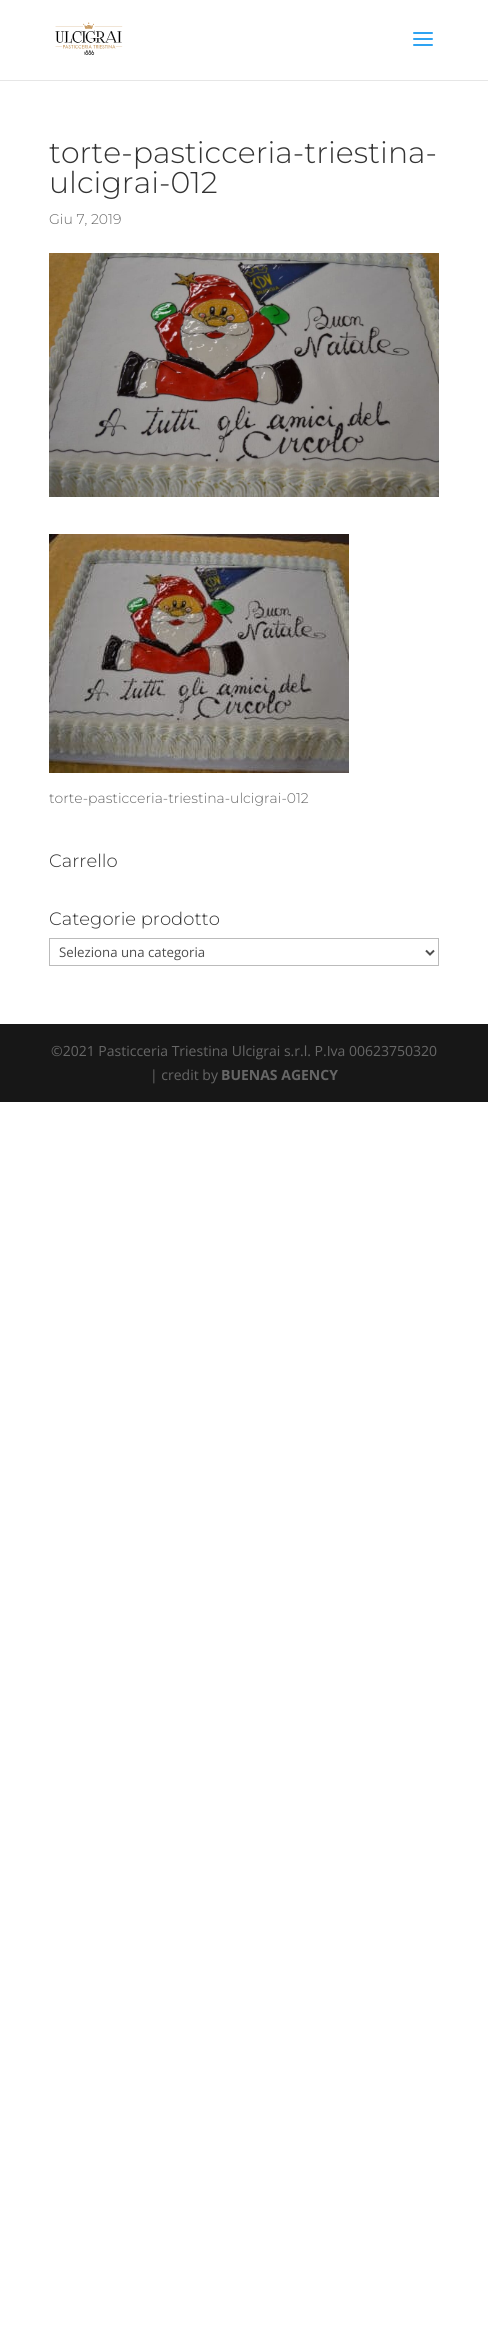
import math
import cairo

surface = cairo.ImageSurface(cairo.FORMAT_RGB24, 488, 2337)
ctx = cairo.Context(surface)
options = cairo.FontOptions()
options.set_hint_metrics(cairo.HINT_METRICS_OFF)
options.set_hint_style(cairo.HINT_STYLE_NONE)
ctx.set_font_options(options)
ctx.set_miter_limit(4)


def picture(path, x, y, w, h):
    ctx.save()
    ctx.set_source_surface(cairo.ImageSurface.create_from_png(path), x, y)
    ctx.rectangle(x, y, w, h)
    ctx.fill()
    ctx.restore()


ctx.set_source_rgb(1, 1, 1)
ctx.paint()
ctx.set_source_rgb(0.902, 0.902, 0.902)
ctx.rectangle(0, 80, 488, 1)
ctx.fill()
picture("img1.png", 55, 22, 68, 33)
picture("img2.png", 413, 32, 20, 14)
ctx.select_font_face("Montserrat Thin")
ctx.set_font_size(30)
ctx.set_source_rgb(0.2, 0.2, 0.2)
ctx.move_to(49, 163)
ctx.show_text("torte-pasticceria-triestina-")
ctx.move_to(49, 193)
ctx.show_text("ulcigrai-012")
ctx.set_font_size(14)
ctx.set_source_rgb(0.4, 0.4, 0.4)
ctx.move_to(49, 224)
ctx.show_text("Giu 7, 2019")
picture("img3.png", 49, 253, 390, 244)
picture("img4.png", 49, 534, 300, 239)
ctx.move_to(49, 803)
ctx.show_text("torte-pasticceria-triestina-ulcigrai-012")
ctx.set_font_size(18)
ctx.set_source_rgb(0.2, 0.2, 0.2)
ctx.move_to(49, 867)
ctx.show_text("Carrello")
ctx.move_to(49, 925)
ctx.show_text("Categorie prodotto")
ctx.rectangle(49.5, 938.5, 389, 27)
ctx.set_source_rgb(0.733, 0.733, 0.733)
ctx.set_line_width(1)
ctx.stroke()
ctx.new_path()
ctx.move_to(426, 950.5)
ctx.line_to(430, 954.5)
ctx.line_to(434, 950.5)
ctx.set_source_rgb(0.306, 0.306, 0.306)
ctx.set_line_width(2)
ctx.stroke()
ctx.select_font_face("Open Sans")
ctx.set_font_size(13.25)
ctx.move_to(59, 957)
ctx.show_text("Seleziona una categoria")
ctx.set_source_rgb(0.09, 0.09, 0.09)
ctx.rectangle(0, 1024, 488, 78)
ctx.fill()
ctx.set_font_size(14)
ctx.set_source_rgb(0.4, 0.4, 0.4)
ctx.move_to(51, 1056)
ctx.show_text("©2021 Pasticceria Triestina Ulcigrai s.r.l. P.Iva 00623750320")
ctx.move_to(150, 1080)
ctx.show_text("| credit by")
ctx.select_font_face("Open Sans", cairo.FONT_SLANT_NORMAL, cairo.FONT_WEIGHT_BOLD)
ctx.move_to(221, 1080)
ctx.show_text("BUENAS AGENCY")
surface.write_to_png("page.png")
